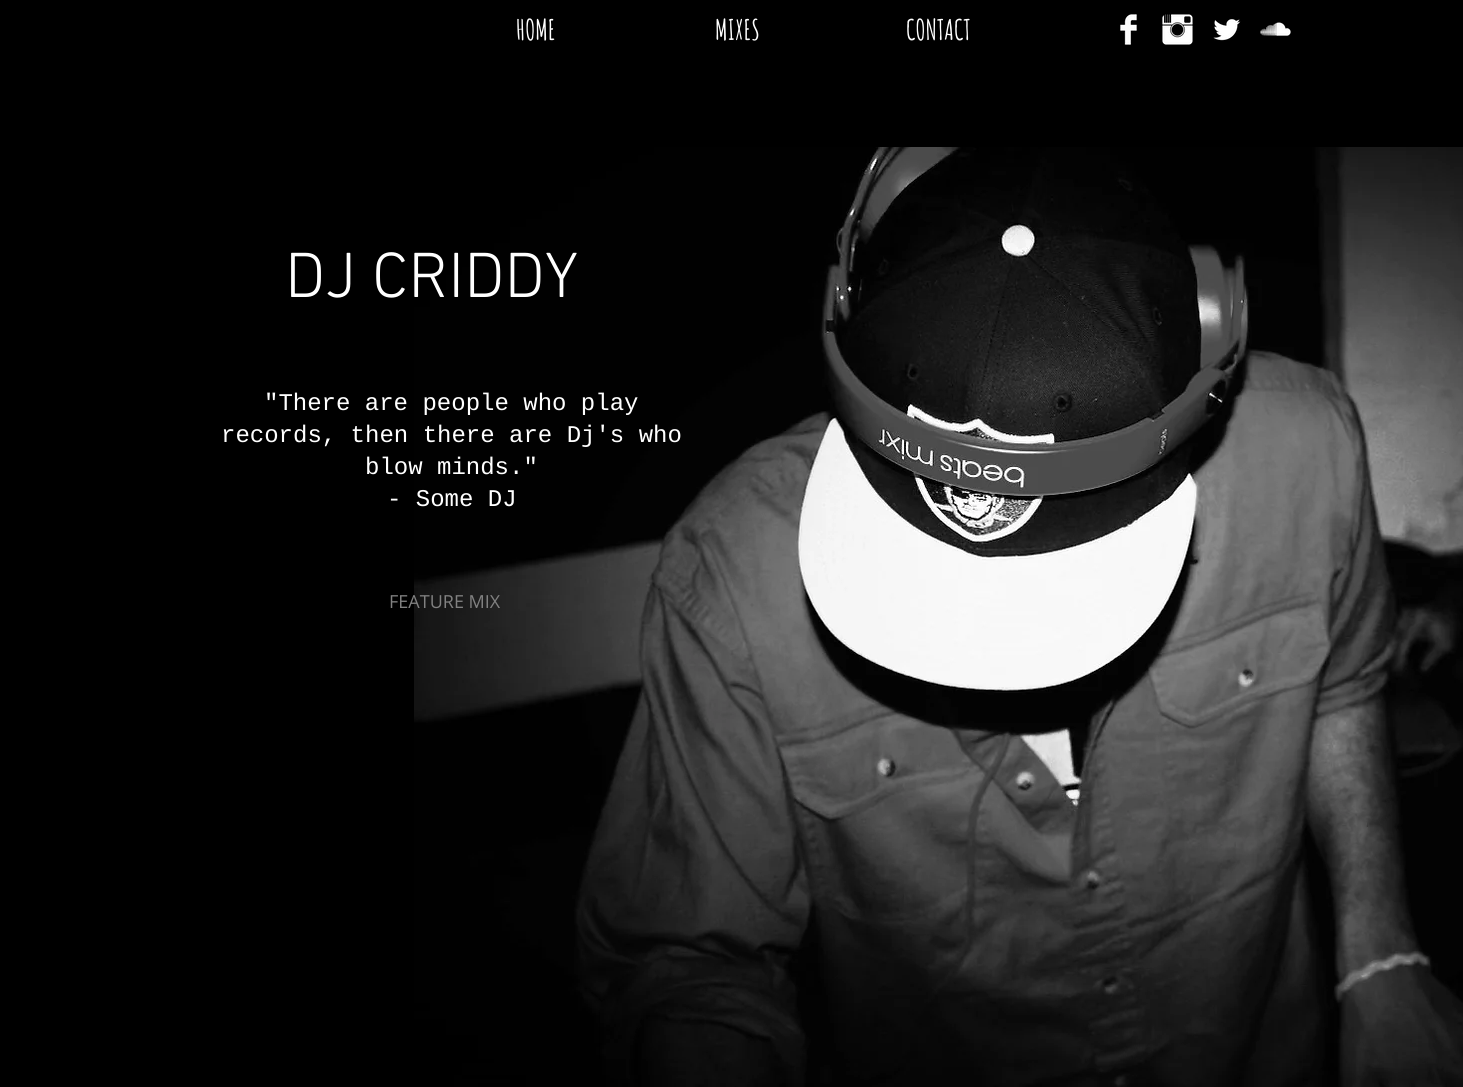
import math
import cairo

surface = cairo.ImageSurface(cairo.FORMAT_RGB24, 1463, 1087)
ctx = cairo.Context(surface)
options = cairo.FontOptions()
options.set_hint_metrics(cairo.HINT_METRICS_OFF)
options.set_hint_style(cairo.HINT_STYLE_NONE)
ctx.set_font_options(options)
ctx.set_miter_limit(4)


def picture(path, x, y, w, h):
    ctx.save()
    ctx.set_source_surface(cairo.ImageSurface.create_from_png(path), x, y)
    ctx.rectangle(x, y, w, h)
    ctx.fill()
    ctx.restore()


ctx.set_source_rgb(0, 0, 0)
ctx.paint()
ctx.select_font_face("Amatic SC", cairo.FONT_SLANT_NORMAL, cairo.FONT_WEIGHT_BOLD)
ctx.set_font_size(28)
ctx.set_source_rgb(1, 1, 1)
ctx.move_to(516, 40)
ctx.show_text("HOME")
ctx.move_to(715, 40)
ctx.show_text("MIXES")
ctx.move_to(906, 40)
ctx.show_text("CONTACT")
picture("img1.png", 1120, 14, 17, 31)
picture("img2.png", 1162, 14, 31, 31)
picture("img3.png", 1213, 19, 28, 22)
picture("img4.png", 1260, 22, 31, 14)
picture("img5.png", 414, 147, 1049, 940)
ctx.select_font_face("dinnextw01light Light")
ctx.set_font_size(65)
ctx.move_to(285, 297)
ctx.show_text("DJ CRIDDY")
ctx.select_font_face("Liberation Mono")
ctx.set_font_size(24)
ctx.move_to(264, 410)
ctx.show_text("\"There are people who play")
ctx.move_to(221, 442)
ctx.show_text("records, then there are Dj's who")
ctx.move_to(365, 474)
ctx.show_text("blow minds.\"")
ctx.move_to(387, 506)
ctx.show_text("- Some DJ")
ctx.select_font_face("Open Sans")
ctx.set_font_size(18)
ctx.set_source_rgb(0.506, 0.506, 0.506)
ctx.move_to(389, 608)
ctx.show_text("FEATURE MIX")
surface.write_to_png("page.png")
